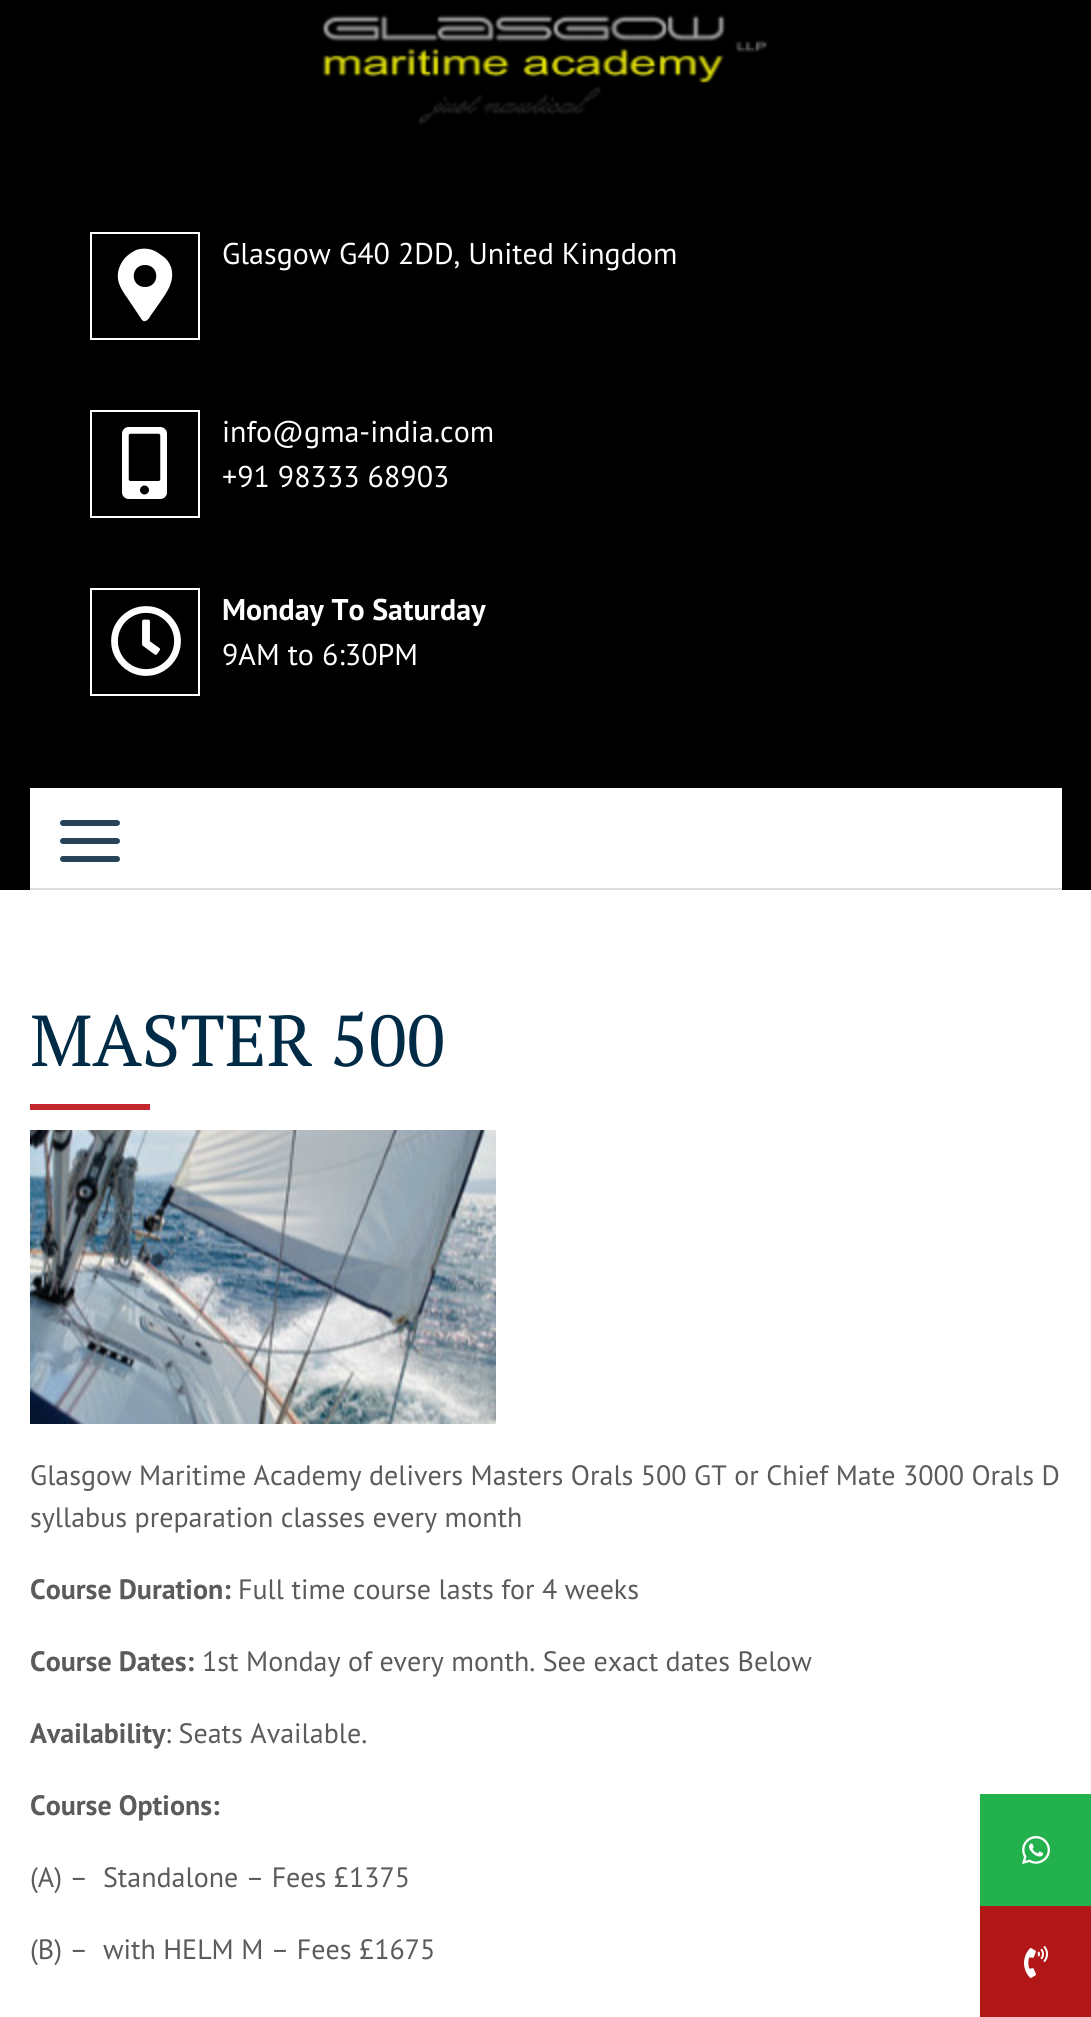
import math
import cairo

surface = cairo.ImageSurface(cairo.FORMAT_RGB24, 1091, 2017)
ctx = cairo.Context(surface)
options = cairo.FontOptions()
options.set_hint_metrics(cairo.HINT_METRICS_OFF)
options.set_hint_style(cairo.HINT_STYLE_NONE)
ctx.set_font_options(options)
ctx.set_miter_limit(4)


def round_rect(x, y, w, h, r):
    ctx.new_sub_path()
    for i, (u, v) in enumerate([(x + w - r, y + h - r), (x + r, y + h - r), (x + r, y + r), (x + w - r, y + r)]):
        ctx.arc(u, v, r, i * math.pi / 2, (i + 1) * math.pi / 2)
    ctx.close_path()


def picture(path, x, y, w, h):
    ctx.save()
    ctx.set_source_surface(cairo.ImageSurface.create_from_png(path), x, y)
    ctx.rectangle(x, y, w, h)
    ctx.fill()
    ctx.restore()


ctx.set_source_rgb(1, 1, 1)
ctx.paint()
ctx.set_source_rgb(0, 0, 0)
ctx.rectangle(0, 0, 1091, 890)
ctx.fill()
picture("img1.png", 321, 14, 447, 111)
ctx.rectangle(91, 233, 108, 106)
ctx.set_source_rgb(1, 1, 1)
ctx.stroke()
ctx.new_path()
ctx.move_to(142, 320)
ctx.line_to(128, 299)
ctx.curve_to(120, 288, 113, 277, 122, 262)
ctx.curve_to(125, 257, 130, 253, 136, 250)
ctx.curve_to(145, 247, 154, 249, 161, 255)
ctx.curve_to(166, 258, 169, 262, 171, 267)
ctx.curve_to(176, 283, 164, 296, 156, 308)
ctx.line_to(151, 315)
ctx.curve_to(150, 317, 146, 324, 142, 320)
ctx.close_path()
ctx.move_to(145, 287)
ctx.curve_to(160, 287, 160, 265, 145, 265)
ctx.curve_to(130, 265, 130, 287, 145, 287)
ctx.close_path()
ctx.fill()
ctx.select_font_face("PT Sans")
ctx.set_font_size(30)
ctx.move_to(222, 264)
ctx.show_text("Glasgow G40 2DD, United Kingdom")
ctx.rectangle(91, 411, 108, 106)
ctx.stroke()
picture("img2.png", 122, 427, 45, 72)
ctx.move_to(222, 442)
ctx.show_text("info@gma-india.com")
ctx.move_to(222, 487)
ctx.show_text("+91 98333 68903")
ctx.rectangle(91, 589, 108, 106)
ctx.stroke()
picture("img3.png", 111, 606, 70, 70)
ctx.select_font_face("PT Sans", cairo.FONT_SLANT_NORMAL, cairo.FONT_WEIGHT_BOLD)
ctx.move_to(222, 620)
ctx.show_text("Monday To Saturday")
ctx.select_font_face("PT Sans")
ctx.move_to(222, 665)
ctx.show_text("9AM to 6:30PM")
ctx.rectangle(30, 788, 1032, 100)
ctx.fill()
ctx.set_source_rgb(0.867, 0.867, 0.867)
ctx.rectangle(30, 888, 1032, 2)
ctx.fill()
ctx.set_source_rgb(0.149, 0.263, 0.349)
round_rect(60, 838, 60, 6, 3)
ctx.fill()
round_rect(60, 820, 60, 6, 3)
ctx.fill()
round_rect(60, 856, 60, 6, 3)
ctx.fill()
ctx.select_font_face("PT Serif")
ctx.set_font_size(72)
ctx.set_source_rgb(0, 0.169, 0.275)
ctx.move_to(30, 1066)
ctx.show_text("MASTER 500")
ctx.set_source_rgb(0.761, 0.153, 0.176)
ctx.rectangle(30, 1104, 120, 6)
ctx.fill()
picture("img4.png", 30, 1130, 466, 294)
ctx.select_font_face("PT Sans")
ctx.set_font_size(28)
ctx.set_source_rgb(0.357, 0.357, 0.357)
ctx.move_to(30, 1485)
ctx.show_text("Glasgow Maritime Academy delivers Masters Orals 500 GT or Chief Mate 3000 Orals D")
ctx.move_to(30, 1527)
ctx.show_text("syllabus preparation classes every month")
ctx.select_font_face("PT Sans", cairo.FONT_SLANT_NORMAL, cairo.FONT_WEIGHT_BOLD)
ctx.move_to(30, 1599)
ctx.show_text("Course Duration:")
ctx.select_font_face("PT Sans")
ctx.move_to(238, 1599)
ctx.show_text("Full time course lasts for 4 weeks")
ctx.select_font_face("PT Sans", cairo.FONT_SLANT_NORMAL, cairo.FONT_WEIGHT_BOLD)
ctx.move_to(30, 1671)
ctx.show_text("Course Dates:")
ctx.select_font_face("PT Sans")
ctx.move_to(202, 1671)
ctx.show_text("1st Monday of every month. See exact dates Below")
ctx.select_font_face("PT Sans", cairo.FONT_SLANT_NORMAL, cairo.FONT_WEIGHT_BOLD)
ctx.move_to(30, 1743)
ctx.show_text("Availability")
ctx.select_font_face("PT Sans")
ctx.move_to(165, 1743)
ctx.show_text(": Seats Available.")
ctx.select_font_face("PT Sans", cairo.FONT_SLANT_NORMAL, cairo.FONT_WEIGHT_BOLD)
ctx.move_to(30, 1815)
ctx.show_text("Course Options:")
ctx.select_font_face("PT Sans")
ctx.move_to(30, 1887)
ctx.show_text("(A) –  Standalone – Fees £1375")
ctx.move_to(30, 1959)
ctx.show_text("(B) –  with HELM M – Fees £1675")
ctx.set_source_rgb(0.133, 0.694, 0.298)
ctx.rectangle(980, 1794, 111, 112)
ctx.fill()
picture("img5.png", 1022, 1836, 28, 28)
ctx.set_source_rgb(0.698, 0.09, 0.09)
ctx.rectangle(980, 1906, 111, 111)
ctx.fill()
picture("img6.png", 1024, 1946, 24, 32)
surface.write_to_png("page.png")
